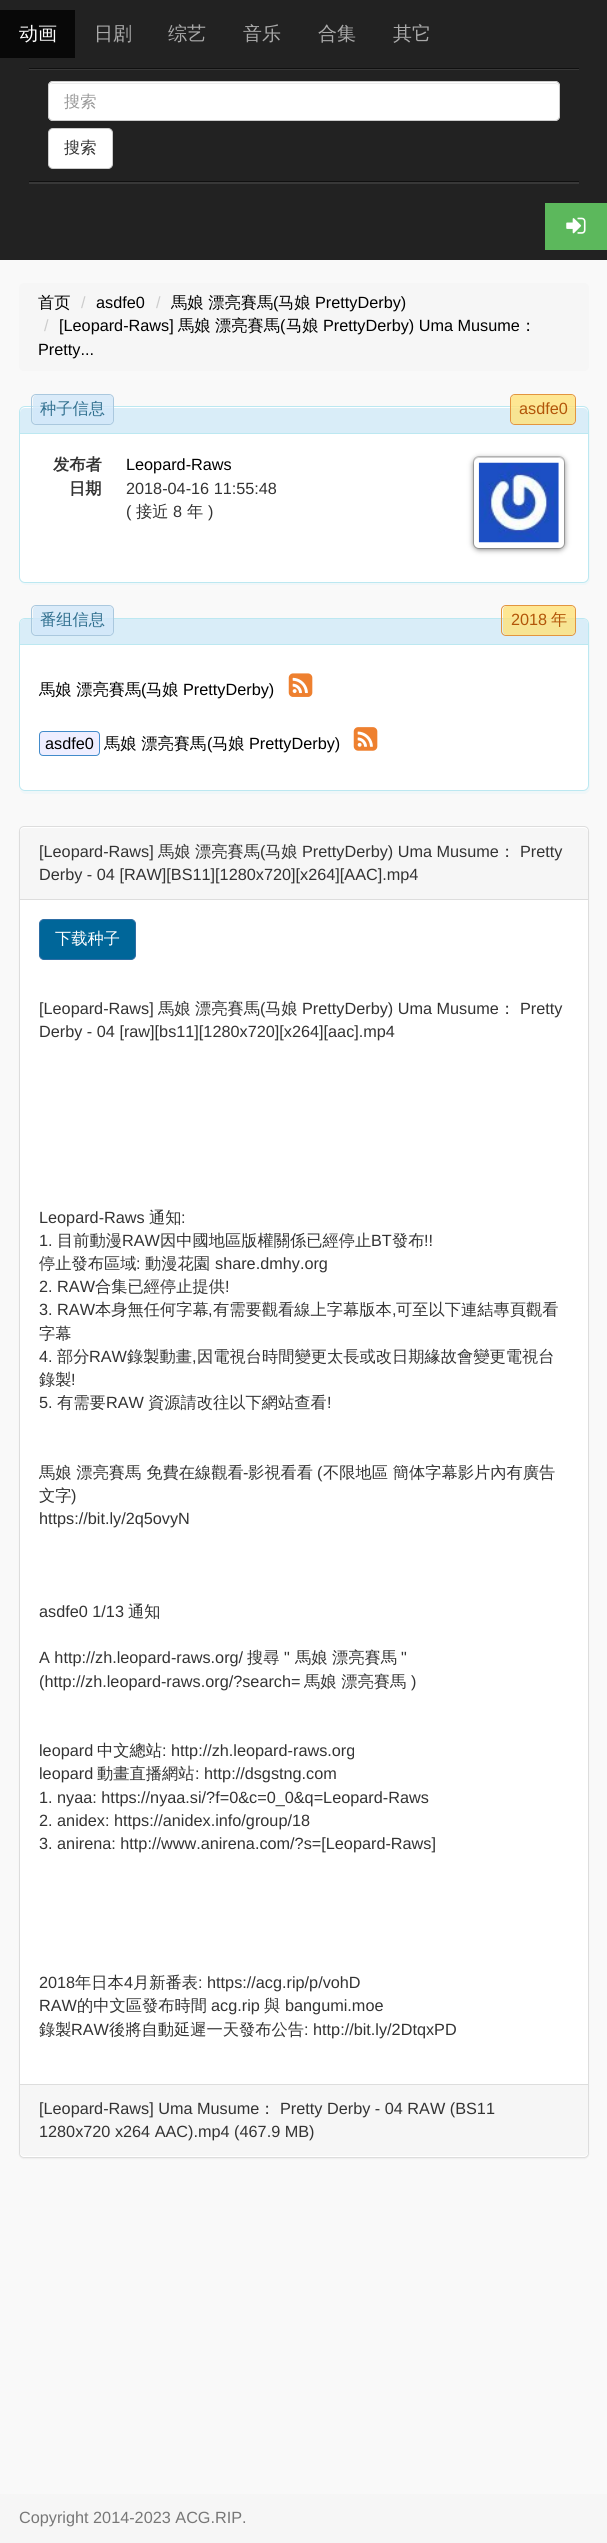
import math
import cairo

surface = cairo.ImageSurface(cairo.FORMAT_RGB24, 607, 2543)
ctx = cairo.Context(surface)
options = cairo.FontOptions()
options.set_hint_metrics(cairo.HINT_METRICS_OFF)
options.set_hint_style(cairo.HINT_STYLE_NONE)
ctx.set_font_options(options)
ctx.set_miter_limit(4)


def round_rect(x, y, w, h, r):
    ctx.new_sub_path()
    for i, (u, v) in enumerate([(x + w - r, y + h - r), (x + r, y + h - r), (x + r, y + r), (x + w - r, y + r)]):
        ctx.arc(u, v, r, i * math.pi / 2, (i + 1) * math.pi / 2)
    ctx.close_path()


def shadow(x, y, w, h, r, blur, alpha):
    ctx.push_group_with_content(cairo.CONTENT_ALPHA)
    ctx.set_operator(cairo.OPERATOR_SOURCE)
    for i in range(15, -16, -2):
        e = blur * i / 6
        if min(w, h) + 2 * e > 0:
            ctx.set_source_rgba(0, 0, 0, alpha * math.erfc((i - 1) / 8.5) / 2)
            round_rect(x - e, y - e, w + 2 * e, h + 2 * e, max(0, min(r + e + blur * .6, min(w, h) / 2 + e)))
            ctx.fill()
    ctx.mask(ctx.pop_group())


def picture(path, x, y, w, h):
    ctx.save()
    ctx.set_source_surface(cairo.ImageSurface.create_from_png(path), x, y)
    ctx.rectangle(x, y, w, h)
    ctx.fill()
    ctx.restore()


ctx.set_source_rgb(0.976, 0.976, 0.976)
ctx.paint()
ctx.set_source_rgb(0.133, 0.133, 0.133)
ctx.rectangle(0, 0, 607, 260)
ctx.fill()
ctx.set_source_rgb(0.035, 0.035, 0.035)
ctx.rectangle(0, 10, 75, 48)
ctx.fill()
ctx.select_font_face("WenQuanYi Zen Hei Medium")
ctx.set_font_size(19)
ctx.set_source_rgb(1, 1, 1)
ctx.move_to(19, 40)
ctx.show_text("动画")
ctx.set_source_rgb(0.667, 0.667, 0.667)
ctx.move_to(94, 40)
ctx.show_text("日剧")
ctx.move_to(168, 40)
ctx.show_text("综艺")
ctx.move_to(243, 40)
ctx.show_text("音乐")
ctx.move_to(318, 40)
ctx.show_text("合集")
ctx.move_to(393, 40)
ctx.show_text("其它")
ctx.set_source_rgb(0.22, 0.22, 0.22)
ctx.new_path()
ctx.move_to(29, 182)
ctx.line_to(29, 184)
ctx.line_to(579, 184)
ctx.line_to(579, 69)
ctx.line_to(579, 182)
ctx.close_path()
ctx.fill()
ctx.rectangle(29, 69, 550, 1)
ctx.fill()
ctx.set_source_rgb(0.063, 0.063, 0.063)
ctx.rectangle(29, 68, 550, 1)
ctx.fill()
ctx.rectangle(29, 181, 550, 1)
ctx.fill()
ctx.set_source_rgb(1, 1, 1)
round_rect(48, 81, 512, 40, 5)
ctx.fill()
ctx.set_source_rgb(0.925, 0.925, 0.925)
ctx.new_path()
ctx.move_to(52, 84)
ctx.line_to(555, 84)
ctx.curve_to(557, 84, 559, 85, 559, 88)
ctx.line_to(559, 87)
ctx.curve_to(559, 85, 557, 83, 555, 83)
ctx.line_to(53, 83)
ctx.curve_to(51, 83, 49, 85, 49, 87)
ctx.line_to(49, 88)
ctx.curve_to(49, 85, 50, 84, 52, 84)
ctx.close_path()
ctx.fill()
round_rect(48.5, 81.5, 511, 39, 4.5)
ctx.set_source_rgb(0.8, 0.8, 0.8)
ctx.set_line_width(1)
ctx.stroke()
ctx.set_font_size(16.25)
ctx.set_source_rgb(0.6, 0.6, 0.6)
ctx.move_to(64, 107)
ctx.show_text("搜索")
ctx.set_source_rgb(1, 1, 1)
round_rect(48.5, 128.5, 64, 40, 4.5)
ctx.fill_preserve()
ctx.set_source_rgb(0.8, 0.8, 0.8)
ctx.stroke()
ctx.set_source_rgb(0.2, 0.2, 0.2)
ctx.move_to(64, 153)
ctx.show_text("搜索")
ctx.set_source_rgb(0.361, 0.722, 0.361)
ctx.rectangle(545, 203, 62, 47)
ctx.fill()
picture("img1.png", 566, 217, 20, 17)
ctx.set_source_rgb(0.961, 0.961, 0.961)
round_rect(19, 283, 570, 88, 5)
ctx.fill()
ctx.set_source_rgb(0, 0, 0)
ctx.move_to(38, 308)
ctx.show_text("首页")
ctx.select_font_face("Liberation Sans")
ctx.set_source_rgb(0.8, 0.8, 0.8)
ctx.move_to(81, 308)
ctx.show_text("/")
ctx.set_source_rgb(0, 0, 0)
ctx.move_to(96, 308)
ctx.show_text("asdfe0")
ctx.set_source_rgb(0.8, 0.8, 0.8)
ctx.move_to(156, 308)
ctx.show_text("/")
ctx.select_font_face("WenQuanYi Zen Hei Medium")
ctx.set_source_rgb(0, 0, 0)
ctx.move_to(171, 308)
ctx.show_text("馬娘 漂亮賽馬")
ctx.select_font_face("Liberation Sans")
ctx.move_to(273, 308)
ctx.show_text("(")
ctx.select_font_face("WenQuanYi Zen Hei Medium")
ctx.move_to(278, 308)
ctx.show_text("马娘")
ctx.select_font_face("Liberation Sans")
ctx.move_to(315, 308)
ctx.show_text("PrettyDerby)")
ctx.set_source_rgb(0.8, 0.8, 0.8)
ctx.move_to(44, 331)
ctx.show_text("/")
ctx.set_source_rgb(0, 0, 0)
ctx.move_to(59, 331)
ctx.show_text("[Leopard-Raws]")
ctx.select_font_face("WenQuanYi Zen Hei Medium")
ctx.move_to(178, 331)
ctx.show_text("馬娘")
ctx.move_to(215, 331)
ctx.show_text("漂亮賽馬")
ctx.select_font_face("Liberation Sans")
ctx.move_to(280, 331)
ctx.show_text("(")
ctx.select_font_face("WenQuanYi Zen Hei Medium")
ctx.move_to(286, 331)
ctx.show_text("马娘")
ctx.select_font_face("Liberation Sans")
ctx.move_to(323, 331)
ctx.show_text("PrettyDerby) Uma Musume")
ctx.select_font_face("WenQuanYi Zen Hei Medium")
ctx.move_to(520, 331)
ctx.show_text("：")
ctx.select_font_face("Liberation Sans")
ctx.move_to(38, 355)
ctx.show_text("Pretty...")
ctx.set_source_rgb(0.941, 0.965, 0.973)
ctx.new_path()
ctx.move_to(20, 580)
ctx.curve_to(21, 583, 23, 585, 26, 585)
ctx.line_to(584, 585)
ctx.curve_to(587, 585, 590, 582, 590, 579)
ctx.line_to(590, 415)
ctx.curve_to(590, 414, 589, 412, 589, 411)
ctx.line_to(589, 576)
ctx.curve_to(589, 580, 586, 582, 582, 582)
ctx.line_to(25, 582)
ctx.curve_to(23, 582, 21, 582, 20, 580)
ctx.close_path()
ctx.fill()
ctx.set_source_rgb(1, 1, 1)
round_rect(19.5, 406.5, 569, 176, 5.5)
ctx.fill_preserve()
ctx.set_source_rgb(0.737, 0.91, 0.945)
ctx.stroke()
ctx.set_source_rgb(0.851, 0.929, 0.969)
ctx.new_path()
ctx.move_to(25, 408)
ctx.line_to(583, 408)
ctx.curve_to(586, 408, 588, 410, 588, 413)
ctx.line_to(588, 434)
ctx.line_to(20, 434)
ctx.line_to(20, 413)
ctx.curve_to(20, 410, 22, 408, 25, 408)
ctx.close_path()
ctx.fill()
ctx.set_source_rgb(0.737, 0.91, 0.945)
ctx.rectangle(20, 433, 568, 1)
ctx.fill()
round_rect(31.5, 394.5, 82, 30, 4.5)
ctx.set_source_rgb(0.667, 0.784, 0.871)
ctx.stroke()
ctx.set_source_rgba(0.824, 0.906, 0.976, 0.8)
round_rect(33, 395, 80, 29, 4)
ctx.fill()
ctx.select_font_face("WenQuanYi Zen Hei Medium")
ctx.set_source_rgb(0.192, 0.439, 0.561)
ctx.move_to(40, 414)
ctx.show_text("种子信息")
round_rect(510.5, 394.5, 65, 30, 4.5)
ctx.set_source_rgb(0.89, 0.584, 0.247)
ctx.stroke()
ctx.set_source_rgba(1, 0.886, 0.475, 0.8)
round_rect(511, 395, 64, 29, 4)
ctx.fill()
ctx.select_font_face("Liberation Sans")
ctx.set_source_rgb(0.698, 0.333, 0.035)
ctx.move_to(519, 414)
ctx.show_text("asdfe0")
ctx.select_font_face("WenQuanYi Zen Hei", cairo.FONT_SLANT_NORMAL, cairo.FONT_WEIGHT_BOLD)
ctx.set_source_rgb(0.2, 0.2, 0.2)
ctx.move_to(53, 470)
ctx.show_text("发布者")
ctx.select_font_face("Liberation Sans")
ctx.set_source_rgb(0, 0, 0)
ctx.move_to(126, 470)
ctx.show_text("Leopard-Raws")
ctx.select_font_face("WenQuanYi Zen Hei", cairo.FONT_SLANT_NORMAL, cairo.FONT_WEIGHT_BOLD)
ctx.set_source_rgb(0.2, 0.2, 0.2)
ctx.move_to(69, 494)
ctx.show_text("日期")
ctx.select_font_face("Liberation Sans")
ctx.move_to(126, 494)
ctx.show_text("2018-04-16 11:55:48")
ctx.move_to(126, 517)
ctx.show_text("(")
ctx.select_font_face("WenQuanYi Zen Hei Medium")
ctx.move_to(136, 517)
ctx.show_text("接近")
ctx.select_font_face("Liberation Sans")
ctx.move_to(173, 517)
ctx.show_text("8")
ctx.select_font_face("WenQuanYi Zen Hei Medium")
ctx.move_to(187, 517)
ctx.show_text("年")
ctx.select_font_face("Liberation Sans")
ctx.move_to(208, 517)
ctx.show_text(")")
ctx.set_source_rgb(0.4, 0.4, 0.4)
shadow(474, 459, 90, 90, 5, 3, 1)
round_rect(473.5, 456.5, 91, 92, 5.5)
ctx.set_source_rgba(0, 0, 0, 0.2)
ctx.stroke()
ctx.set_source_rgb(1, 1, 1)
round_rect(474, 458, 90, 90, 5)
ctx.fill()
picture("img2.png", 478, 462, 81, 81)
ctx.set_source_rgb(0.941, 0.965, 0.973)
ctx.new_path()
ctx.move_to(20, 789)
ctx.curve_to(20, 792, 23, 794, 26, 794)
ctx.line_to(584, 794)
ctx.curve_to(587, 794, 590, 791, 590, 788)
ctx.line_to(590, 626)
ctx.curve_to(590, 624, 589, 623, 589, 622)
ctx.line_to(589, 785)
ctx.curve_to(589, 788, 586, 791, 582, 791)
ctx.line_to(25, 791)
ctx.curve_to(23, 791, 21, 790, 20, 789)
ctx.close_path()
ctx.fill()
ctx.set_source_rgb(1, 1, 1)
round_rect(19.5, 618.5, 569, 172, 5.5)
ctx.fill_preserve()
ctx.set_source_rgb(0.737, 0.91, 0.945)
ctx.stroke()
ctx.set_source_rgb(0.851, 0.929, 0.969)
ctx.new_path()
ctx.move_to(25, 619)
ctx.line_to(583, 619)
ctx.curve_to(586, 619, 588, 621, 588, 624)
ctx.line_to(588, 645)
ctx.line_to(20, 645)
ctx.line_to(20, 624)
ctx.curve_to(20, 621, 22, 619, 25, 619)
ctx.close_path()
ctx.fill()
ctx.set_source_rgb(0.737, 0.91, 0.945)
ctx.rectangle(20, 644, 568, 1)
ctx.fill()
round_rect(31.5, 605.5, 82, 30, 4.5)
ctx.set_source_rgb(0.667, 0.784, 0.871)
ctx.stroke()
ctx.set_source_rgba(0.824, 0.906, 0.976, 0.8)
round_rect(33, 606, 80, 29, 4)
ctx.fill()
ctx.select_font_face("WenQuanYi Zen Hei Medium")
ctx.set_source_rgb(0.192, 0.439, 0.561)
ctx.move_to(40, 625)
ctx.show_text("番组信息")
round_rect(501.5, 605.5, 74, 30, 4.5)
ctx.set_source_rgb(0.89, 0.584, 0.247)
ctx.stroke()
ctx.set_source_rgba(1, 0.886, 0.475, 0.8)
round_rect(503, 606, 72, 29, 4)
ctx.fill()
ctx.select_font_face("Liberation Sans")
ctx.set_source_rgb(0.698, 0.333, 0.035)
ctx.move_to(511, 625)
ctx.show_text("2018")
ctx.select_font_face("WenQuanYi Zen Hei Medium")
ctx.move_to(551, 625)
ctx.show_text("年")
ctx.set_source_rgb(0, 0, 0)
ctx.move_to(39, 695)
ctx.show_text("馬娘 漂亮賽馬")
ctx.select_font_face("Liberation Sans")
ctx.move_to(141, 695)
ctx.show_text("(")
ctx.select_font_face("WenQuanYi Zen Hei Medium")
ctx.move_to(146, 695)
ctx.show_text("马娘")
ctx.select_font_face("Liberation Sans")
ctx.move_to(183, 695)
ctx.show_text("PrettyDerby)")
picture("img3.png", 288, 673, 25, 24)
ctx.set_source_rgb(0.933, 0.933, 1)
round_rect(39.5, 731.5, 60, 24, 3.5)
ctx.fill_preserve()
ctx.set_source_rgb(0.259, 0.545, 0.792)
ctx.stroke()
ctx.set_source_rgb(0, 0, 0)
ctx.move_to(45, 749)
ctx.show_text("asdfe0")
ctx.select_font_face("WenQuanYi Zen Hei Medium")
ctx.move_to(104, 749)
ctx.show_text("馬娘 漂亮賽馬")
ctx.select_font_face("Liberation Sans")
ctx.move_to(207, 749)
ctx.show_text("(")
ctx.select_font_face("WenQuanYi Zen Hei Medium")
ctx.move_to(212, 749)
ctx.show_text("马娘")
ctx.select_font_face("Liberation Sans")
ctx.move_to(249, 749)
ctx.show_text("PrettyDerby)")
picture("img4.png", 353, 727, 25, 24)
ctx.set_source_rgb(0, 0, 0)
shadow(19, 828, 570, 1331, 5, 0.5, 0.05)
ctx.set_source_rgb(1, 1, 1)
round_rect(19.5, 826.5, 569, 1331, 4.5)
ctx.fill_preserve()
ctx.set_source_rgb(0.867, 0.867, 0.867)
ctx.stroke()
ctx.set_source_rgb(0.961, 0.961, 0.961)
ctx.new_path()
ctx.move_to(24, 828)
ctx.line_to(584, 828)
ctx.curve_to(586, 828, 588, 830, 588, 832)
ctx.line_to(588, 900)
ctx.line_to(20, 900)
ctx.line_to(20, 832)
ctx.curve_to(20, 830, 22, 828, 24, 828)
ctx.close_path()
ctx.fill()
ctx.set_source_rgb(0.867, 0.867, 0.867)
ctx.rectangle(20, 899, 568, 1)
ctx.fill()
ctx.set_source_rgb(0.2, 0.2, 0.2)
ctx.move_to(39, 857)
ctx.show_text("[Leopard-Raws]")
ctx.select_font_face("WenQuanYi Zen Hei Medium")
ctx.move_to(158, 857)
ctx.show_text("馬娘")
ctx.move_to(195, 857)
ctx.show_text("漂亮賽馬")
ctx.select_font_face("Liberation Sans")
ctx.move_to(260, 857)
ctx.show_text("(")
ctx.select_font_face("WenQuanYi Zen Hei Medium")
ctx.move_to(265, 857)
ctx.show_text("马娘")
ctx.select_font_face("Liberation Sans")
ctx.move_to(302, 857)
ctx.show_text("PrettyDerby) Uma Musume")
ctx.select_font_face("WenQuanYi Zen Hei Medium")
ctx.move_to(499, 857)
ctx.show_text("：")
ctx.select_font_face("Liberation Sans")
ctx.move_to(520, 857)
ctx.show_text("Pretty")
ctx.move_to(39, 880)
ctx.show_text("Derby - 04 [RAW][BS11][1280x720][x264][AAC].mp4")
ctx.set_source_rgb(0, 0.4, 0.6)
round_rect(39.5, 919.5, 96, 40, 4.5)
ctx.fill_preserve()
ctx.set_source_rgb(0.18, 0.427, 0.643)
ctx.stroke()
ctx.select_font_face("WenQuanYi Zen Hei Medium")
ctx.set_source_rgb(1, 1, 1)
ctx.move_to(55, 944)
ctx.show_text("下载种子")
ctx.select_font_face("Liberation Sans")
ctx.set_source_rgb(0.2, 0.2, 0.2)
ctx.move_to(39, 1014)
ctx.show_text("[Leopard-Raws]")
ctx.select_font_face("WenQuanYi Zen Hei Medium")
ctx.move_to(158, 1014)
ctx.show_text("馬娘")
ctx.move_to(195, 1014)
ctx.show_text("漂亮賽馬")
ctx.select_font_face("Liberation Sans")
ctx.move_to(260, 1014)
ctx.show_text("(")
ctx.select_font_face("WenQuanYi Zen Hei Medium")
ctx.move_to(265, 1014)
ctx.show_text("马娘")
ctx.select_font_face("Liberation Sans")
ctx.move_to(302, 1014)
ctx.show_text("PrettyDerby) Uma Musume")
ctx.select_font_face("WenQuanYi Zen Hei Medium")
ctx.move_to(499, 1014)
ctx.show_text("：")
ctx.select_font_face("Liberation Sans")
ctx.move_to(520, 1014)
ctx.show_text("Pretty")
ctx.move_to(39, 1037)
ctx.show_text("Derby - 04 [raw][bs11][1280x720][x264][aac].mp4")
ctx.move_to(39, 1223)
ctx.show_text("Leopard-Raws")
ctx.select_font_face("WenQuanYi Zen Hei Medium")
ctx.move_to(149, 1223)
ctx.show_text("通知")
ctx.select_font_face("Liberation Sans")
ctx.move_to(181, 1223)
ctx.show_text(":")
ctx.move_to(39, 1246)
ctx.show_text("1.")
ctx.select_font_face("WenQuanYi Zen Hei Medium")
ctx.move_to(57, 1246)
ctx.show_text("目前動漫")
ctx.select_font_face("Liberation Sans")
ctx.move_to(122, 1246)
ctx.show_text("RAW")
ctx.select_font_face("WenQuanYi Zen Hei Medium")
ctx.move_to(160, 1246)
ctx.show_text("因中國地區版權關係已經停止")
ctx.select_font_face("Liberation Sans")
ctx.move_to(371, 1246)
ctx.show_text("BT")
ctx.select_font_face("WenQuanYi Zen Hei Medium")
ctx.move_to(392, 1246)
ctx.show_text("發布")
ctx.select_font_face("Liberation Sans")
ctx.move_to(424, 1246)
ctx.show_text("!!")
ctx.select_font_face("WenQuanYi Zen Hei Medium")
ctx.move_to(39, 1269)
ctx.show_text("停止發布區域")
ctx.select_font_face("Liberation Sans")
ctx.move_to(136, 1269)
ctx.show_text(":")
ctx.select_font_face("WenQuanYi Zen Hei Medium")
ctx.move_to(145, 1269)
ctx.show_text("動漫花園")
ctx.select_font_face("Liberation Sans")
ctx.move_to(215, 1269)
ctx.show_text("share.dmhy.org")
ctx.move_to(39, 1292)
ctx.show_text("2. RAW")
ctx.select_font_face("WenQuanYi Zen Hei Medium")
ctx.move_to(95, 1292)
ctx.show_text("合集已經停止提供")
ctx.select_font_face("Liberation Sans")
ctx.move_to(225, 1292)
ctx.show_text("!")
ctx.move_to(39, 1315)
ctx.show_text("3. RAW")
ctx.select_font_face("WenQuanYi Zen Hei Medium")
ctx.move_to(95, 1315)
ctx.show_text("本身無任何字幕")
ctx.select_font_face("Liberation Sans")
ctx.move_to(208, 1315)
ctx.show_text(",")
ctx.select_font_face("WenQuanYi Zen Hei Medium")
ctx.move_to(213, 1315)
ctx.show_text("有需要觀看線上字幕版本")
ctx.select_font_face("Liberation Sans")
ctx.move_to(392, 1315)
ctx.show_text(",")
ctx.select_font_face("WenQuanYi Zen Hei Medium")
ctx.move_to(396, 1315)
ctx.show_text("可至以下連結專頁觀看")
ctx.move_to(39, 1339)
ctx.show_text("字幕")
ctx.select_font_face("Liberation Sans")
ctx.move_to(39, 1362)
ctx.show_text("4.")
ctx.select_font_face("WenQuanYi Zen Hei Medium")
ctx.move_to(57, 1362)
ctx.show_text("部分")
ctx.select_font_face("Liberation Sans")
ctx.move_to(89, 1362)
ctx.show_text("RAW")
ctx.select_font_face("WenQuanYi Zen Hei Medium")
ctx.move_to(127, 1362)
ctx.show_text("錄製動畫")
ctx.move_to(197, 1362)
ctx.show_text("因電視台時間變更太長或改日期緣故會變更電視台")
ctx.select_font_face("Liberation Sans")
ctx.move_to(192, 1362)
ctx.show_text(",")
ctx.select_font_face("WenQuanYi Zen Hei Medium")
ctx.move_to(39, 1385)
ctx.show_text("錄製")
ctx.select_font_face("Liberation Sans")
ctx.move_to(71, 1385)
ctx.show_text("!")
ctx.move_to(39, 1408)
ctx.show_text("5.")
ctx.select_font_face("WenQuanYi Zen Hei Medium")
ctx.move_to(57, 1408)
ctx.show_text("有需要")
ctx.select_font_face("Liberation Sans")
ctx.move_to(106, 1408)
ctx.show_text("RAW")
ctx.select_font_face("WenQuanYi Zen Hei Medium")
ctx.move_to(148, 1408)
ctx.show_text("資源請改往以下網站查看")
ctx.select_font_face("Liberation Sans")
ctx.move_to(327, 1408)
ctx.show_text("!")
ctx.select_font_face("WenQuanYi Zen Hei Medium")
ctx.move_to(39, 1478)
ctx.show_text("馬娘 漂亮賽馬 免費在線觀看")
ctx.select_font_face("Liberation Sans")
ctx.move_to(243, 1478)
ctx.show_text("-")
ctx.select_font_face("WenQuanYi Zen Hei Medium")
ctx.move_to(248, 1478)
ctx.show_text("影視看看")
ctx.select_font_face("Liberation Sans")
ctx.move_to(317, 1478)
ctx.show_text("(")
ctx.select_font_face("WenQuanYi Zen Hei Medium")
ctx.move_to(323, 1478)
ctx.show_text("不限地區 簡体字幕影片內有廣告")
ctx.move_to(39, 1501)
ctx.show_text("文字")
ctx.select_font_face("Liberation Sans")
ctx.move_to(71, 1501)
ctx.show_text(")")
ctx.move_to(39, 1524)
ctx.show_text("https://bit.ly/2q5ovyN")
ctx.move_to(39, 1617)
ctx.show_text("asdfe0 1/13")
ctx.select_font_face("WenQuanYi Zen Hei Medium")
ctx.move_to(128, 1617)
ctx.show_text("通知")
ctx.select_font_face("Liberation Sans")
ctx.move_to(39, 1663)
ctx.show_text("A http://zh.leopard-raws.org/")
ctx.select_font_face("WenQuanYi Zen Hei Medium")
ctx.move_to(247, 1663)
ctx.show_text("搜尋")
ctx.select_font_face("Liberation Sans")
ctx.move_to(284, 1663)
ctx.show_text("\"")
ctx.select_font_face("WenQuanYi Zen Hei Medium")
ctx.move_to(295, 1663)
ctx.show_text("馬娘")
ctx.move_to(332, 1663)
ctx.show_text("漂亮賽馬")
ctx.select_font_face("Liberation Sans")
ctx.move_to(401, 1663)
ctx.show_text("\"")
ctx.move_to(39, 1687)
ctx.show_text("(http://zh.leopard-raws.org/?search=")
ctx.select_font_face("WenQuanYi Zen Hei Medium")
ctx.move_to(304, 1687)
ctx.show_text("馬娘 漂亮賽馬")
ctx.select_font_face("Liberation Sans")
ctx.move_to(411, 1687)
ctx.show_text(")")
ctx.move_to(39, 1756)
ctx.show_text("leopard")
ctx.select_font_face("WenQuanYi Zen Hei Medium")
ctx.move_to(97, 1756)
ctx.show_text("中文總站")
ctx.select_font_face("Liberation Sans")
ctx.move_to(162, 1756)
ctx.show_text(": http://zh.leopard-raws.org")
ctx.move_to(39, 1779)
ctx.show_text("leopard")
ctx.select_font_face("WenQuanYi Zen Hei Medium")
ctx.move_to(97, 1779)
ctx.show_text("動畫直播網站")
ctx.select_font_face("Liberation Sans")
ctx.move_to(195, 1779)
ctx.show_text(": http://dsgstng.com")
ctx.move_to(39, 1803)
ctx.show_text("1. nyaa: https://nyaa.si/?f=0&c=0_0&q=Leopard-Raws")
ctx.move_to(39, 1826)
ctx.show_text("2. anidex: https://anidex.info/group/18")
ctx.move_to(39, 1849)
ctx.show_text("3. anirena: http://www.anirena.com/?s=[Leopard-Raws]")
ctx.move_to(39, 1988)
ctx.show_text("2018")
ctx.select_font_face("WenQuanYi Zen Hei Medium")
ctx.move_to(75, 1988)
ctx.show_text("年日本")
ctx.select_font_face("Liberation Sans")
ctx.move_to(124, 1988)
ctx.show_text("4")
ctx.select_font_face("WenQuanYi Zen Hei Medium")
ctx.move_to(133, 1988)
ctx.show_text("月新番表")
ctx.select_font_face("Liberation Sans")
ctx.move_to(198, 1988)
ctx.show_text(": https://acg.rip/p/vohD")
ctx.move_to(39, 2011)
ctx.show_text("RAW")
ctx.select_font_face("WenQuanYi Zen Hei Medium")
ctx.move_to(77, 2011)
ctx.show_text("的中文區發布時間")
ctx.select_font_face("Liberation Sans")
ctx.move_to(211, 2011)
ctx.show_text("acg.rip")
ctx.select_font_face("WenQuanYi Zen Hei Medium")
ctx.move_to(264, 2011)
ctx.show_text("與")
ctx.select_font_face("Liberation Sans")
ctx.move_to(285, 2011)
ctx.show_text("bangumi.moe")
ctx.select_font_face("WenQuanYi Zen Hei Medium")
ctx.move_to(39, 2035)
ctx.show_text("錄製")
ctx.select_font_face("Liberation Sans")
ctx.move_to(71, 2035)
ctx.show_text("RAW")
ctx.select_font_face("WenQuanYi Zen Hei Medium")
ctx.move_to(109, 2035)
ctx.show_text("後將自動延遲一天發布公告")
ctx.select_font_face("Liberation Sans")
ctx.move_to(304, 2035)
ctx.show_text(": http://bit.ly/2DtqxPD")
ctx.set_source_rgb(0.961, 0.961, 0.961)
ctx.new_path()
ctx.move_to(20, 2084)
ctx.line_to(588, 2084)
ctx.line_to(588, 2152)
ctx.curve_to(588, 2154, 586, 2156, 584, 2156)
ctx.line_to(24, 2156)
ctx.curve_to(22, 2156, 20, 2154, 20, 2152)
ctx.close_path()
ctx.fill()
ctx.set_source_rgb(0.867, 0.867, 0.867)
ctx.rectangle(20, 2084, 568, 1)
ctx.fill()
ctx.set_source_rgb(0.2, 0.2, 0.2)
ctx.move_to(39, 2114)
ctx.show_text("[Leopard-Raws] Uma Musume")
ctx.select_font_face("WenQuanYi Zen Hei Medium")
ctx.move_to(259, 2114)
ctx.show_text("：")
ctx.select_font_face("Liberation Sans")
ctx.move_to(280, 2114)
ctx.show_text("Pretty Derby - 04 RAW (BS11")
ctx.move_to(39, 2137)
ctx.show_text("1280x720 x264 AAC).mp4 (467.9 MB)")
ctx.set_source_rgb(0.961, 0.961, 0.961)
ctx.rectangle(0, 2494, 607, 49)
ctx.fill()
ctx.set_source_rgb(0.467, 0.467, 0.467)
ctx.move_to(19, 2523)
ctx.show_text("Copyright 2014-2023 ACG.RIP.")
surface.write_to_png("page.png")
